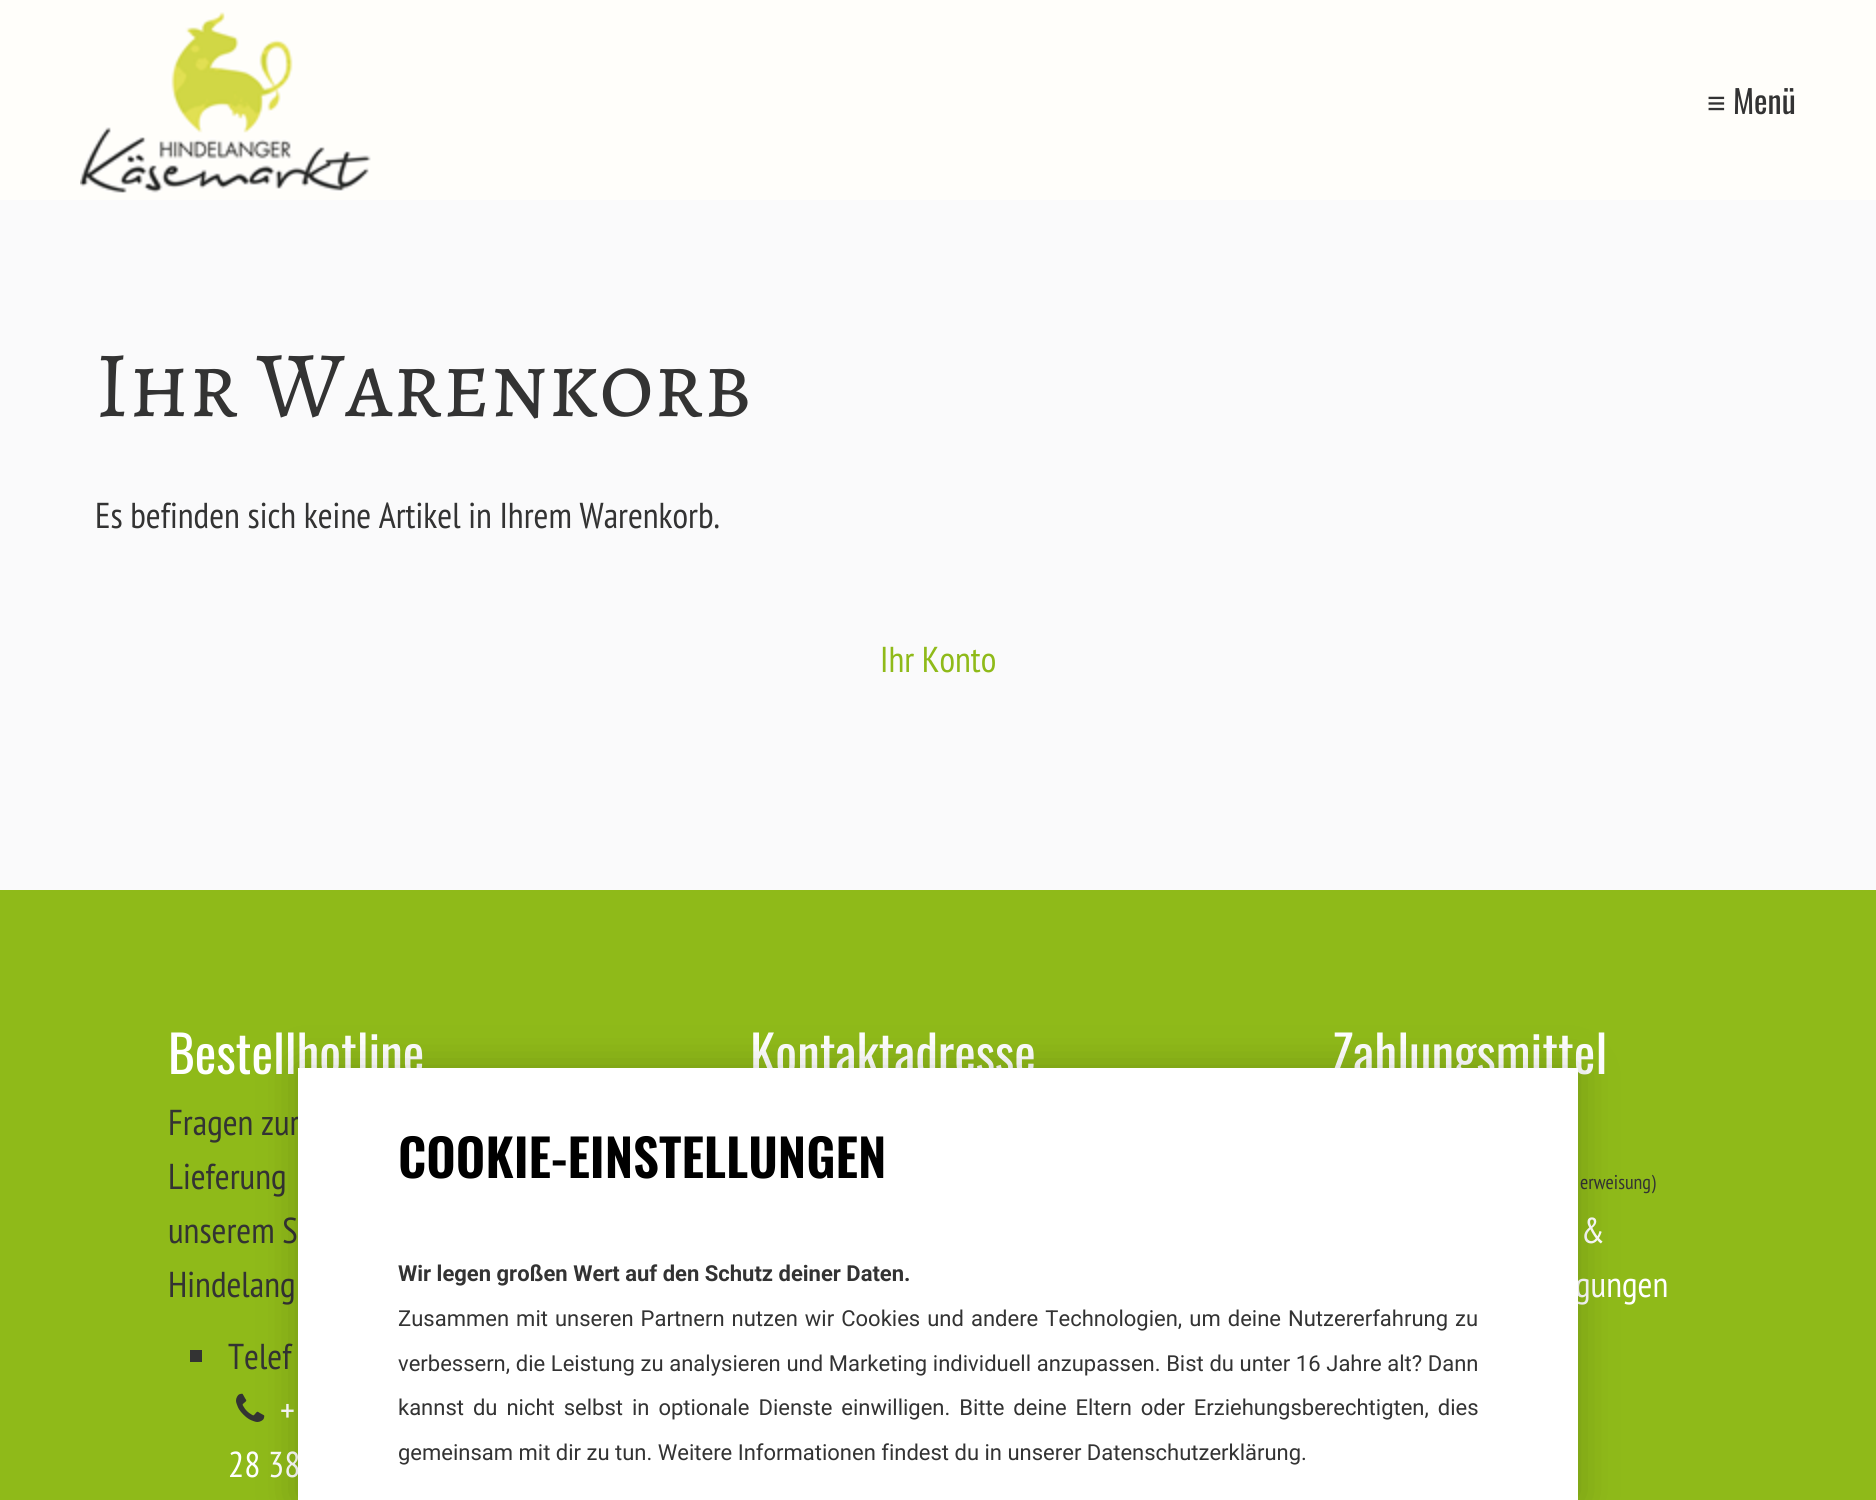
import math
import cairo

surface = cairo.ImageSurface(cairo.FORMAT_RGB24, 1876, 1500)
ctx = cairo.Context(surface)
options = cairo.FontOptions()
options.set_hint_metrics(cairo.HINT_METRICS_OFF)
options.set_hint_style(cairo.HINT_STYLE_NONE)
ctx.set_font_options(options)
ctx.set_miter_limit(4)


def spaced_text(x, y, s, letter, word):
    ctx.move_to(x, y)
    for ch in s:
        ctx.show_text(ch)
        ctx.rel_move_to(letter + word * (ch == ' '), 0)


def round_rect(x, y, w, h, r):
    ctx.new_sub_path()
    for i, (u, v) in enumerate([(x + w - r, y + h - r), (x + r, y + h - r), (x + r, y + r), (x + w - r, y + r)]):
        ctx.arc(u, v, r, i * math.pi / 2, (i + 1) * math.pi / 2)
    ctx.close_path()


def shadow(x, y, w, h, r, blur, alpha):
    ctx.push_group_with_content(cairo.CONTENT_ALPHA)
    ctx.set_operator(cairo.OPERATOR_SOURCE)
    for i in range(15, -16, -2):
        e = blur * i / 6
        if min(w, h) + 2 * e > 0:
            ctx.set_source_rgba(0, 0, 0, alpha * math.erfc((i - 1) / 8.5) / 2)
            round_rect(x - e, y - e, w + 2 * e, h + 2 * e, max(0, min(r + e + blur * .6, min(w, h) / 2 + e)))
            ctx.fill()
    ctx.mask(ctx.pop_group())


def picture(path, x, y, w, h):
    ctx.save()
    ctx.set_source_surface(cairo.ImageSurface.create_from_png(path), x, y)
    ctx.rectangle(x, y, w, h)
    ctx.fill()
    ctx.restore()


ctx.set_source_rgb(0.98, 0.98, 0.984)
ctx.paint()
ctx.set_source_rgb(1, 0.996, 0.98)
ctx.rectangle(0, 0, 1876, 200)
ctx.fill()
picture("img1.png", 80, 12, 291, 181)
ctx.select_font_face("Liberation Sans")
ctx.set_font_size(32)
ctx.set_source_rgb(0.2, 0.2, 0.2)
ctx.move_to(1707, 114)
ctx.show_text("≡")
ctx.select_font_face("Oswald")
ctx.move_to(1733, 114)
ctx.show_text("Menü")
ctx.select_font_face("Alegreya SC")
ctx.set_font_size(94)
ctx.move_to(95, 416)
ctx.show_text("Ihr Warenkorb")
ctx.select_font_face("PT Sans Narrow")
ctx.set_font_size(36)
ctx.move_to(95, 528)
ctx.show_text("Es befinden sich keine Artikel in Ihrem Warenkorb.")
ctx.set_source_rgb(0.561, 0.729, 0.098)
ctx.move_to(880, 672)
ctx.show_text("Ihr Konto")
ctx.rectangle(0, 890, 1876, 610)
ctx.fill()
ctx.select_font_face("Oswald")
ctx.set_font_size(51.25)
ctx.set_source_rgb(1, 1, 1)
ctx.move_to(168, 1074)
ctx.show_text("Bestellhotline")
ctx.select_font_face("PT Sans Narrow")
ctx.set_font_size(36)
ctx.set_source_rgb(0.2, 0.2, 0.2)
ctx.move_to(168, 1135)
ctx.show_text("Fragen zur")
ctx.move_to(168, 1189)
ctx.show_text("Lieferung")
ctx.move_to(168, 1243)
ctx.show_text("unserem S")
ctx.move_to(168, 1297)
ctx.show_text("Hindelang")
ctx.rectangle(190, 1350, 12, 12)
ctx.fill()
ctx.move_to(228, 1369)
ctx.show_text("Telef")
picture("img2.png", 236, 1393, 29, 29)
ctx.set_source_rgb(1, 1, 1)
ctx.move_to(280, 1423)
ctx.show_text("+")
ctx.move_to(228, 1477)
ctx.show_text("28 38")
ctx.select_font_face("Oswald")
ctx.set_font_size(51.25)
ctx.move_to(750, 1074)
ctx.show_text("Kontaktadresse")
ctx.move_to(1332, 1074)
ctx.show_text("Zahlungsmittel")
ctx.select_font_face("PT Sans Narrow")
ctx.set_font_size(20)
ctx.set_source_rgb(0.2, 0.2, 0.2)
ctx.move_to(1580, 1189)
ctx.show_text("erweisung)")
ctx.set_font_size(36)
ctx.set_source_rgb(1, 1, 1)
ctx.move_to(1581, 1243)
ctx.show_text("&")
ctx.move_to(1575, 1297)
ctx.show_text("gungen")
ctx.set_source_rgb(0, 0, 0)
shadow(298, 1068, 1280, 432, 0, 20, 0.2)
ctx.set_source_rgb(1, 1, 1)
ctx.rectangle(298, 1068, 1280, 432)
ctx.fill()
ctx.select_font_face("Oswald SemiBold")
ctx.set_font_size(51.25)
ctx.set_source_rgb(0, 0, 0)
ctx.move_to(398, 1178)
ctx.show_text("COOKIE-EINSTELLUNGEN")
ctx.select_font_face("Roboto", cairo.FONT_SLANT_NORMAL, cairo.FONT_WEIGHT_BOLD)
ctx.set_font_size(22)
ctx.set_source_rgb(0.2, 0.2, 0.2)
ctx.move_to(398, 1281)
ctx.show_text("Wir legen großen Wert auf den Schutz deiner Daten.")
ctx.select_font_face("Roboto")
spaced_text(398, 1326, "Zusammen mit unseren Partnern nutzen wir Cookies und andere Technologien, um deine Nutzererfahrung zu", 0, 1.6)
spaced_text(398, 1371, "verbessern, die Leistung zu analysieren und Marketing individuell anzupassen. Bist du unter 16 Jahre alt? Dann", 0, 0.2)
spaced_text(398, 1415, "kannst du nicht selbst in optionale Dienste einwilligen. Bitte deine Eltern oder Erziehungsberechtigten, dies", 0, 3.5)
ctx.move_to(398, 1460)
ctx.show_text("gemeinsam mit dir zu tun. Weitere Informationen findest du in unserer Datenschutzerklärung.")
surface.write_to_png("page.png")
